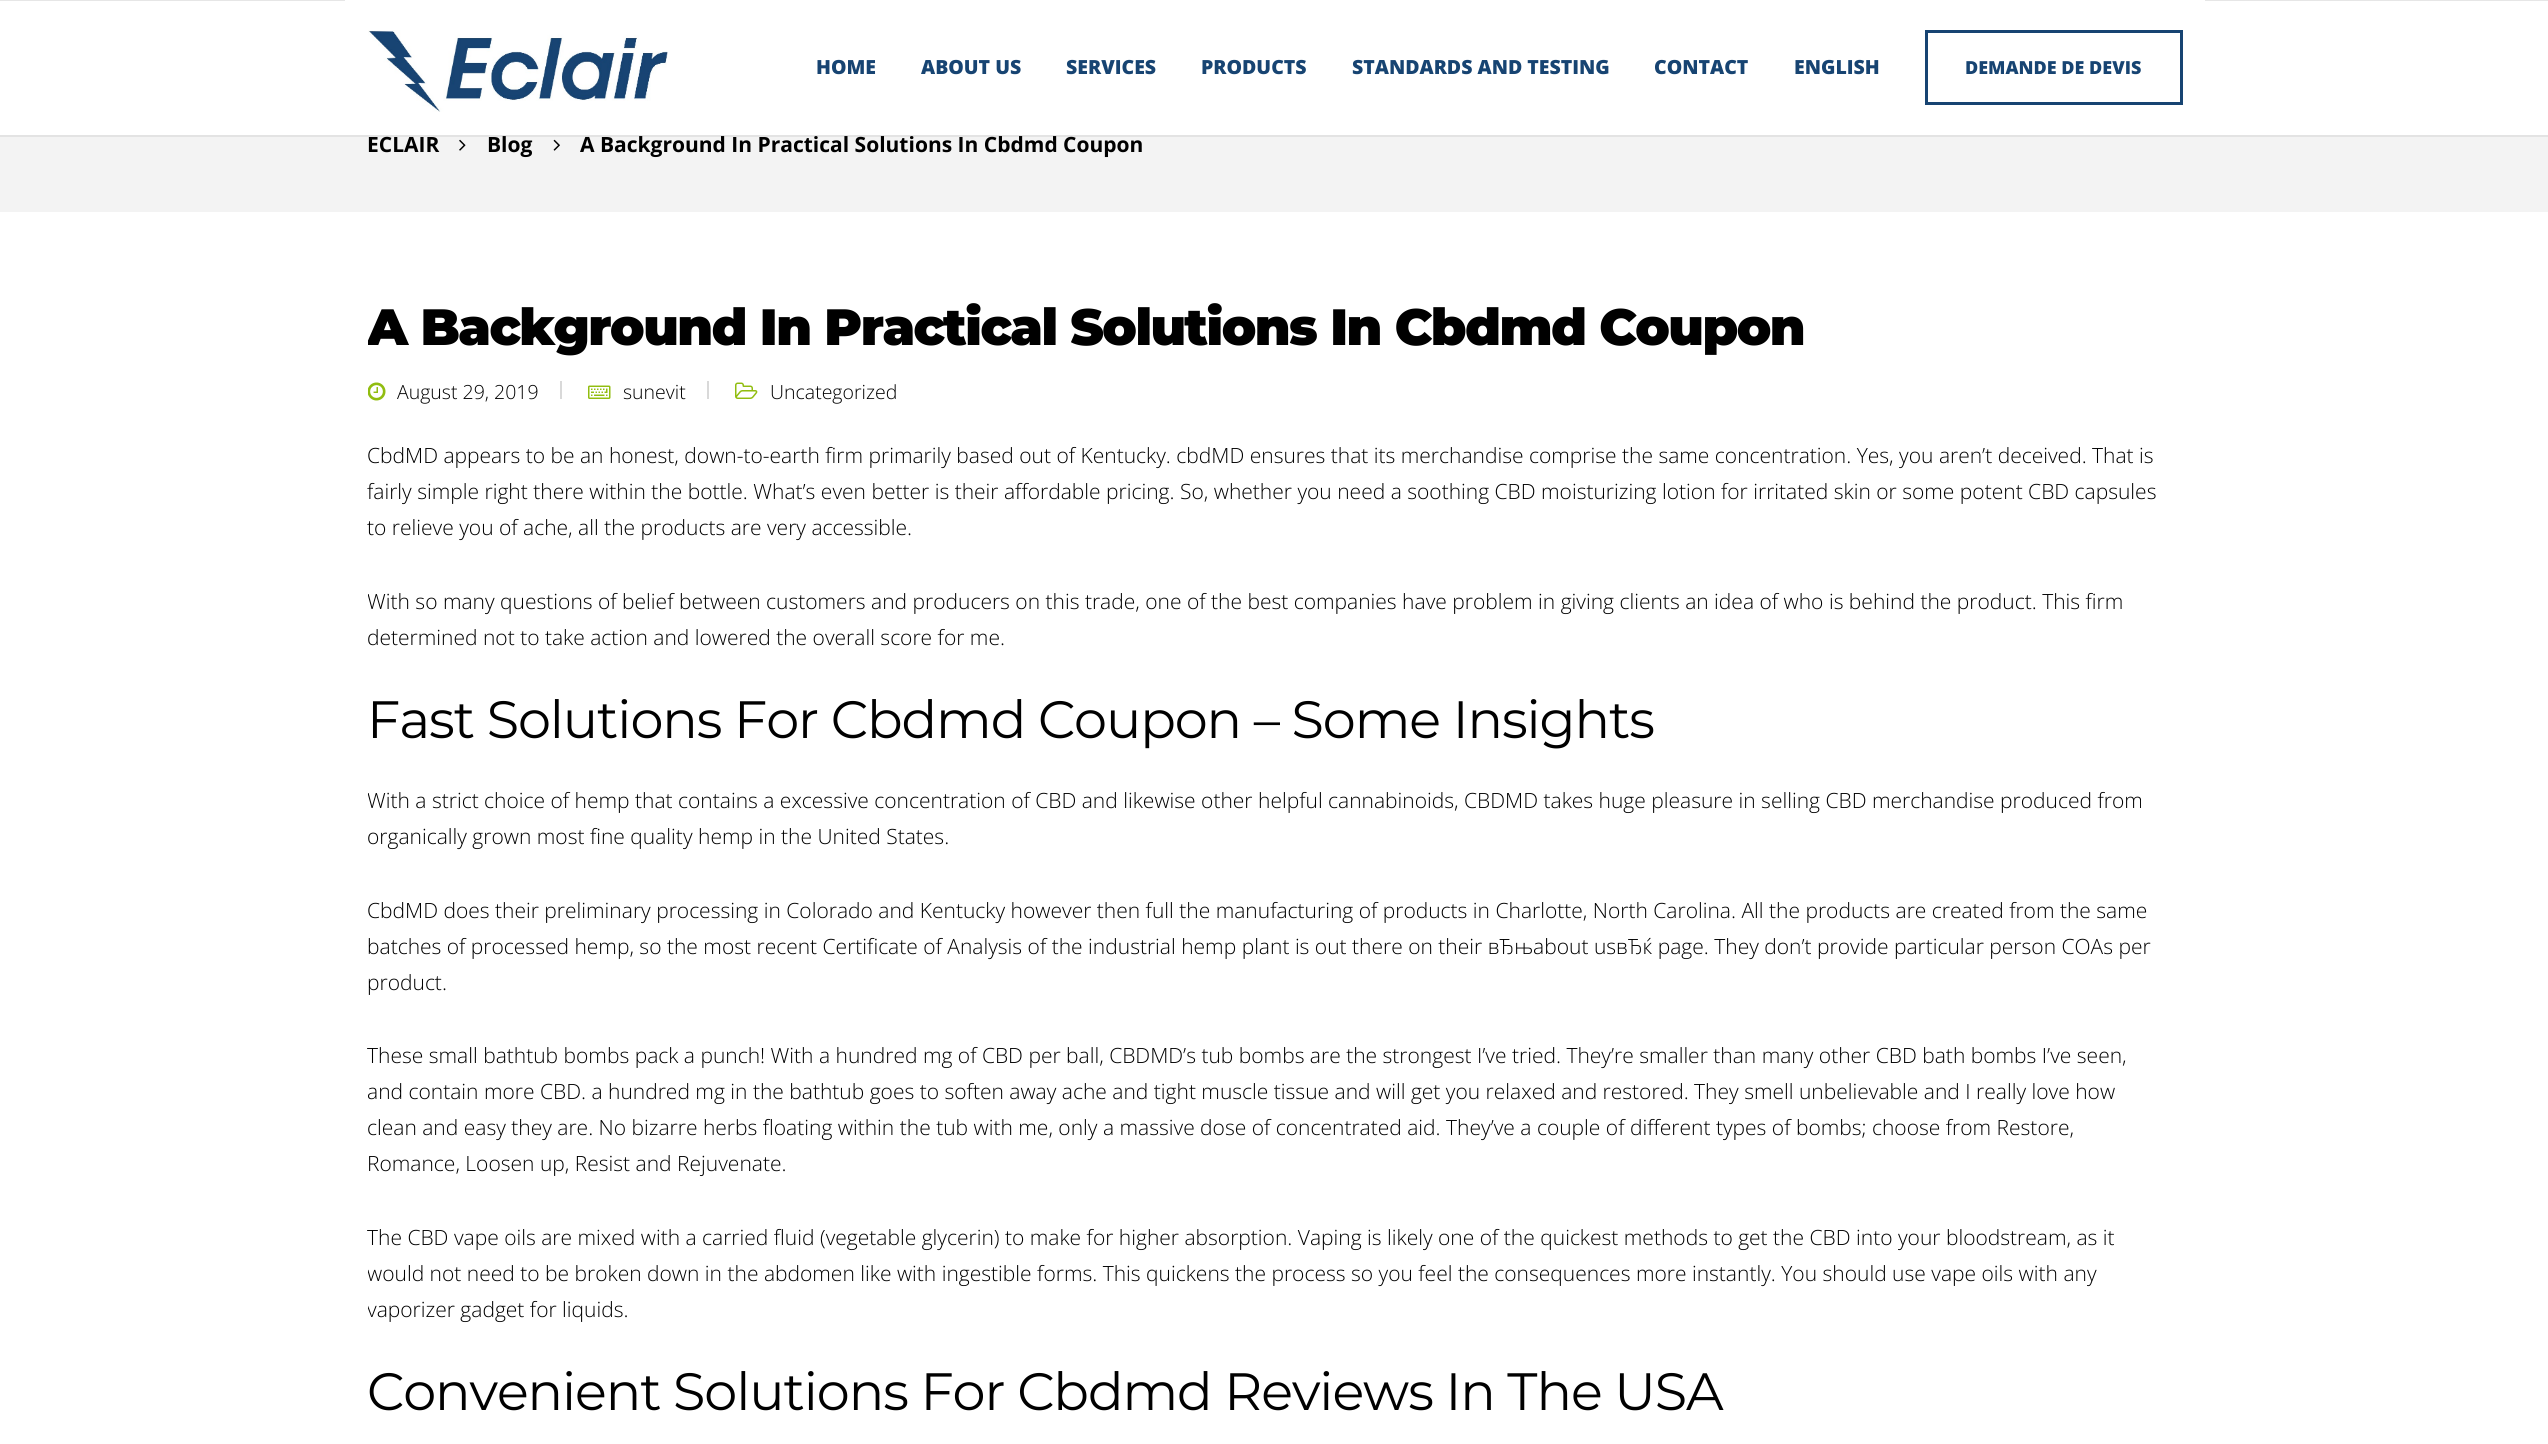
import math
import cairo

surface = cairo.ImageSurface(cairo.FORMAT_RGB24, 2548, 1444)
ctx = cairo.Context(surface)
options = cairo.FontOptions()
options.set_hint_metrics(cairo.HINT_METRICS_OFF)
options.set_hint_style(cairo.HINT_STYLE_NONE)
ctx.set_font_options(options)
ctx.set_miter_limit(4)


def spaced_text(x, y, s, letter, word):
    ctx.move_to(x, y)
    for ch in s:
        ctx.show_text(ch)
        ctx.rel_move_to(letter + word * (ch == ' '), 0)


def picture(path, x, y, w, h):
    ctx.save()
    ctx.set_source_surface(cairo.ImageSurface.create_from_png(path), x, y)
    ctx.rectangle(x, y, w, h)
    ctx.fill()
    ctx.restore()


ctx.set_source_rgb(1, 1, 1)
ctx.paint()
ctx.set_source_rgb(0.953, 0.953, 0.953)
ctx.rectangle(0, 135, 2548, 77)
ctx.fill()
ctx.set_source_rgba(0, 0, 0, 0.07)
ctx.new_path()
ctx.move_to(0, 135)
ctx.line_to(0, 137)
ctx.line_to(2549, 137)
ctx.line_to(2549, -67)
ctx.line_to(2548, -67)
ctx.line_to(2548, 135)
ctx.close_path()
ctx.fill()
ctx.set_source_rgb(0.902, 0.902, 0.902)
ctx.rectangle(0, 0, 2548, 1)
ctx.fill()
ctx.set_source_rgb(1, 1, 1)
ctx.rectangle(345, 0, 1860, 1)
ctx.fill()
picture("img1.png", 368, 30, 300, 82)
ctx.select_font_face("Open Sans ExtraBold")
ctx.set_font_size(19.5)
ctx.set_source_rgb(0.09, 0.267, 0.447)
ctx.move_to(816, 74)
ctx.show_text("HOME")
ctx.move_to(921, 74)
ctx.show_text("ABOUT US")
ctx.move_to(1066, 74)
ctx.show_text("SERVICES")
ctx.move_to(1201, 74)
ctx.show_text("PRODUCTS")
ctx.move_to(1352, 74)
ctx.show_text("STANDARDS AND TESTING")
ctx.move_to(1654, 74)
ctx.show_text("CONTACT")
ctx.move_to(1794, 74)
ctx.show_text("ENGLISH")
ctx.rectangle(1926.5, 31.5, 255, 72)
ctx.set_line_width(3)
ctx.stroke()
ctx.set_font_size(18)
ctx.move_to(1965, 74)
ctx.show_text("DEMANDE DE DEVIS")
ctx.select_font_face("Open Sans", cairo.FONT_SLANT_NORMAL, cairo.FONT_WEIGHT_BOLD)
ctx.set_font_size(21)
ctx.set_source_rgb(0, 0, 0)
ctx.move_to(367, 152)
ctx.show_text("ECLAIR")
picture("img2.png", 459, 139, 7, 12)
ctx.move_to(487, 152)
ctx.show_text("Blog")
picture("img3.png", 553, 139, 7, 12)
ctx.move_to(580, 152)
ctx.show_text("A Background In Practical Solutions In Cbdmd Coupon")
ctx.save()
ctx.rectangle(368, 302, 1800, 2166)
ctx.clip()
ctx.select_font_face("Montserrat Black")
ctx.set_font_size(51)
spaced_text(367, 345, "A Background In Practical Solutions In Cbdmd Coupon", -1.5, 0)
ctx.restore()
picture("img4.png", 368, 382, 18, 19)
ctx.select_font_face("Open Sans Light")
ctx.set_font_size(19.5)
ctx.move_to(397, 399)
ctx.show_text("August 29, 2019")
ctx.set_source_rgb(0.851, 0.851, 0.851)
ctx.rectangle(560, 381, 2, 18)
ctx.fill()
picture("img5.png", 588, 385, 23, 14)
ctx.set_source_rgb(0, 0, 0)
ctx.move_to(623, 399)
ctx.show_text("sunevit")
ctx.set_source_rgb(0.851, 0.851, 0.851)
ctx.rectangle(707, 381, 2, 18)
ctx.fill()
picture("img6.png", 735, 382, 23, 17)
ctx.set_source_rgb(0, 0, 0)
ctx.move_to(770, 399)
ctx.show_text("Uncategorized")
ctx.set_font_size(21)
ctx.move_to(367, 463)
ctx.show_text("CbdMD appears to be an honest, down-to-earth firm primarily based out of Kentucky. cbdMD ensures that its merchandise comprise the same concentration. Yes, you aren’t deceived. That is")
ctx.move_to(367, 499)
ctx.show_text("fairly simple right there within the bottle. What’s even better is their affordable pricing. So, whether you need a soothing CBD moisturizing lotion for irritated skin or some potent CBD capsules")
ctx.move_to(367, 535)
ctx.show_text("to relieve you of ache, all the products are very accessible.")
ctx.save()
ctx.rectangle(368, 302, 1800, 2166)
ctx.clip()
ctx.move_to(367, 609)
ctx.show_text("With so many questions of belief between customers and producers on this trade, one of the best companies have problem in giving clients an idea of who is behind the product. This firm")
ctx.restore()
ctx.move_to(367, 645)
ctx.show_text("determined not to take action and lowered the overall score for me.")
ctx.select_font_face("Montserrat")
ctx.set_font_size(52.5)
spaced_text(367, 738, "Fast Solutions For Cbdmd Coupon – Some Insights", -1.05, 0)
ctx.save()
ctx.rectangle(368, 302, 1800, 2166)
ctx.clip()
ctx.select_font_face("Open Sans Light")
ctx.set_font_size(21)
ctx.move_to(367, 808)
ctx.show_text("With a strict choice of hemp that contains a excessive concentration of CBD and likewise other helpful cannabinoids, CBDMD takes huge pleasure in selling CBD merchandise produced from")
ctx.restore()
ctx.select_font_face("Open Sans Light")
ctx.set_font_size(21)
ctx.move_to(367, 844)
ctx.show_text("organically grown most fine quality hemp in the United States.")
ctx.move_to(367, 918)
ctx.show_text("CbdMD does their preliminary processing in Colorado and Kentucky however then full the manufacturing of products in Charlotte, North Carolina. All the products are created from the same")
ctx.move_to(367, 954)
ctx.show_text("batches of processed hemp, so the most recent Certificate of Analysis of the industrial hemp plant is out there on their вЂњabout usвЂќ page. They don’t provide particular person COAs per")
ctx.move_to(367, 990)
ctx.show_text("product.")
ctx.move_to(367, 1063)
ctx.show_text("These small bathtub bombs pack a punch! With a hundred mg of CBD per ball, CBDMD’s tub bombs are the strongest I’ve tried. They’re smaller than many other CBD bath bombs I’ve seen,")
ctx.move_to(367, 1099)
ctx.show_text("and contain more CBD. a hundred mg in the bathtub goes to soften away ache and tight muscle tissue and will get you relaxed and restored. They smell unbelievable and I really love how")
ctx.move_to(367, 1135)
ctx.show_text("clean and easy they are. No bizarre herbs floating within the tub with me, only a massive dose of concentrated aid. They’ve a couple of different types of bombs; choose from Restore,")
ctx.move_to(367, 1171)
ctx.show_text("Romance, Loosen up, Resist and Rejuvenate.")
ctx.move_to(367, 1245)
ctx.show_text("The CBD vape oils are mixed with a carried fluid (vegetable glycerin) to make for higher absorption. Vaping is likely one of the quickest methods to get the CBD into your bloodstream, as it")
ctx.save()
ctx.rectangle(368, 302, 1800, 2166)
ctx.clip()
ctx.move_to(367, 1281)
ctx.show_text("would not need to be broken down in the abdomen like with ingestible forms. This quickens the process so you feel the consequences more instantly. You should use vape oils with any")
ctx.move_to(367, 1317)
ctx.show_text("vaporizer gadget for liquids.")
ctx.restore()
ctx.select_font_face("Montserrat")
ctx.set_font_size(52.5)
spaced_text(367, 1410, "Convenient Solutions For Cbdmd Reviews In The USA", -1.05, 0)
surface.write_to_png("page.png")
